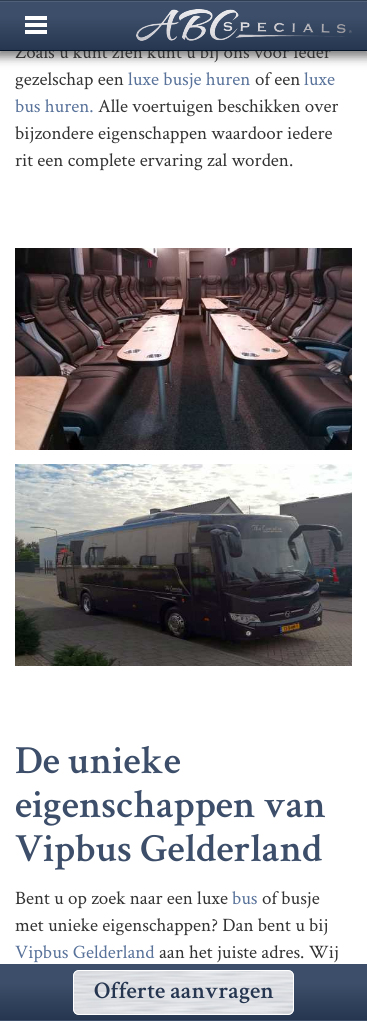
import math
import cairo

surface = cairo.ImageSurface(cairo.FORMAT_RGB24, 367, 1021)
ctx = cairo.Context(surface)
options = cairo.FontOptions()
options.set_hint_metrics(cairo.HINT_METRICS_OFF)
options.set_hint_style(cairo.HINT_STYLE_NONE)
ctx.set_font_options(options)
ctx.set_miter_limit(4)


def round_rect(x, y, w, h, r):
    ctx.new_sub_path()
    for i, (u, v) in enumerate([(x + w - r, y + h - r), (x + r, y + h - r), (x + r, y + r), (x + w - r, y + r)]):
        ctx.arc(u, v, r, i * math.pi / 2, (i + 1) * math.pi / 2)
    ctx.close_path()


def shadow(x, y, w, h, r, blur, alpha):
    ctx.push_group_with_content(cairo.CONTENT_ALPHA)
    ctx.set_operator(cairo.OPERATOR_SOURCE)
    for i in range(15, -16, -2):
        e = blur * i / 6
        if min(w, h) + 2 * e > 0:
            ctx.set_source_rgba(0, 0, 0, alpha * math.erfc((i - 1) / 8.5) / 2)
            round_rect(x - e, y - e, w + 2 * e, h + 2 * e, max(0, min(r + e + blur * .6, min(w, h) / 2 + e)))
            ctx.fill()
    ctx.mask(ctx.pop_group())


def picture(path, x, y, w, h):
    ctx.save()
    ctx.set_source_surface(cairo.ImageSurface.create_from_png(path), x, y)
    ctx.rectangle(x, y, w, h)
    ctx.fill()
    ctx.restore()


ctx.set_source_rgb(1, 1, 1)
ctx.paint()
ctx.set_source_rgb(0, 0, 0)
shadow(-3, 0, 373, 57, 0, 5, 0.5)
ctx.select_font_face("Crimson Text")
ctx.set_font_size(19)
ctx.set_source_rgb(0.2, 0.2, 0.2)
ctx.move_to(15, 58)
ctx.show_text("Zoals u kunt zien kunt u bij ons voor ieder")
gradient = cairo.LinearGradient(184, 0, 184, 50)
gradient.add_color_stop_rgba(0.33, 0.235, 0.306, 0.412, 1)
gradient.add_color_stop_rgba(1, 0.149, 0.212, 0.314, 1)
ctx.set_source(gradient)
ctx.rectangle(0, 2, 367, 48)
ctx.fill()
ctx.set_source_rgb(0.02, 0.075, 0.153)
ctx.rectangle(0, 50, 367, 1)
ctx.fill()
ctx.set_source_rgb(0.314, 0.376, 0.471)
ctx.rectangle(0, 1, 367, 1)
ctx.fill()
ctx.set_source_rgb(0.188, 0.243, 0.329)
ctx.rectangle(0, 0, 367, 1)
ctx.fill()
picture("img1.png", 25, 16, 22, 18)
picture("img2.png", 136, 9, 216, 32)
ctx.set_source_rgb(0.2, 0.2, 0.2)
ctx.move_to(15, 85)
ctx.show_text("gezelschap een")
ctx.set_source_rgb(0.345, 0.447, 0.604)
ctx.move_to(128, 85)
ctx.show_text("luxe busje huren")
ctx.set_source_rgb(0.2, 0.2, 0.2)
ctx.move_to(255, 85)
ctx.show_text("of een")
ctx.set_source_rgb(0.345, 0.447, 0.604)
ctx.move_to(304, 85)
ctx.show_text("luxe")
ctx.move_to(15, 112)
ctx.show_text("bus huren.")
ctx.set_source_rgb(0.2, 0.2, 0.2)
ctx.move_to(98, 112)
ctx.show_text("Alle voertuigen beschikken over")
ctx.move_to(15, 139)
ctx.show_text("bijzondere eigenschappen waardoor iedere")
ctx.move_to(15, 166)
ctx.show_text("rit een complete ervaring zal worden.")
picture("img3.png", 15, 248, 337, 202)
picture("img4.png", 15, 464, 337, 202)
ctx.select_font_face("Crimson Text SemiBold")
ctx.set_font_size(40)
ctx.set_source_rgb(0.235, 0.306, 0.412)
ctx.move_to(15, 773)
ctx.show_text("De unieke")
ctx.move_to(15, 817)
ctx.show_text("eigenschappen van")
ctx.move_to(15, 861)
ctx.show_text("Vipbus Gelderland")
ctx.select_font_face("Crimson Text")
ctx.set_font_size(19)
ctx.set_source_rgb(0.2, 0.2, 0.2)
ctx.move_to(15, 904)
ctx.show_text("Bent u op zoek naar een luxe")
ctx.set_source_rgb(0.345, 0.447, 0.604)
ctx.move_to(232, 904)
ctx.show_text("bus")
ctx.set_source_rgb(0.2, 0.2, 0.2)
ctx.move_to(262, 904)
ctx.show_text("of busje")
ctx.move_to(15, 931)
ctx.show_text("met unieke eigenschappen? Dan bent u bij")
ctx.set_source_rgb(0.345, 0.447, 0.604)
ctx.move_to(15, 958)
ctx.show_text("Vipbus Gelderland")
ctx.set_source_rgb(0.2, 0.2, 0.2)
ctx.move_to(159, 958)
ctx.show_text("aan het juiste adres. Wij")
gradient = cairo.LinearGradient(184, 965, 184, 1020)
gradient.add_color_stop_rgba(0.33, 0.235, 0.306, 0.412, 1)
gradient.add_color_stop_rgba(1, 0.149, 0.212, 0.314, 1)
ctx.set_source(gradient)
ctx.rectangle(0, 965, 367, 55)
ctx.fill()
gradient = cairo.LinearGradient(184, 1020, 184, 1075)
gradient.add_color_stop_rgba(0.33, 0.235, 0.306, 0.412, 1)
gradient.add_color_stop_rgba(1, 0.149, 0.212, 0.314, 1)
ctx.set_source(gradient)
ctx.rectangle(0, 1020, 367, 1)
ctx.fill()
ctx.set_source_rgb(0.235, 0.306, 0.412)
ctx.rectangle(0, 964, 367, 1)
ctx.fill()
picture("img5.png", 73, 970, 221, 45)
round_rect(73.5, 970.5, 220, 44, 5.5)
ctx.set_source_rgb(1, 1, 1)
ctx.set_line_width(1)
ctx.stroke()
ctx.select_font_face("Crimson Text SemiBold")
ctx.set_font_size(24)
ctx.set_source_rgb(0.149, 0.212, 0.314)
ctx.move_to(94, 998)
ctx.show_text("Offerte aanvragen")
surface.write_to_png("page.png")
